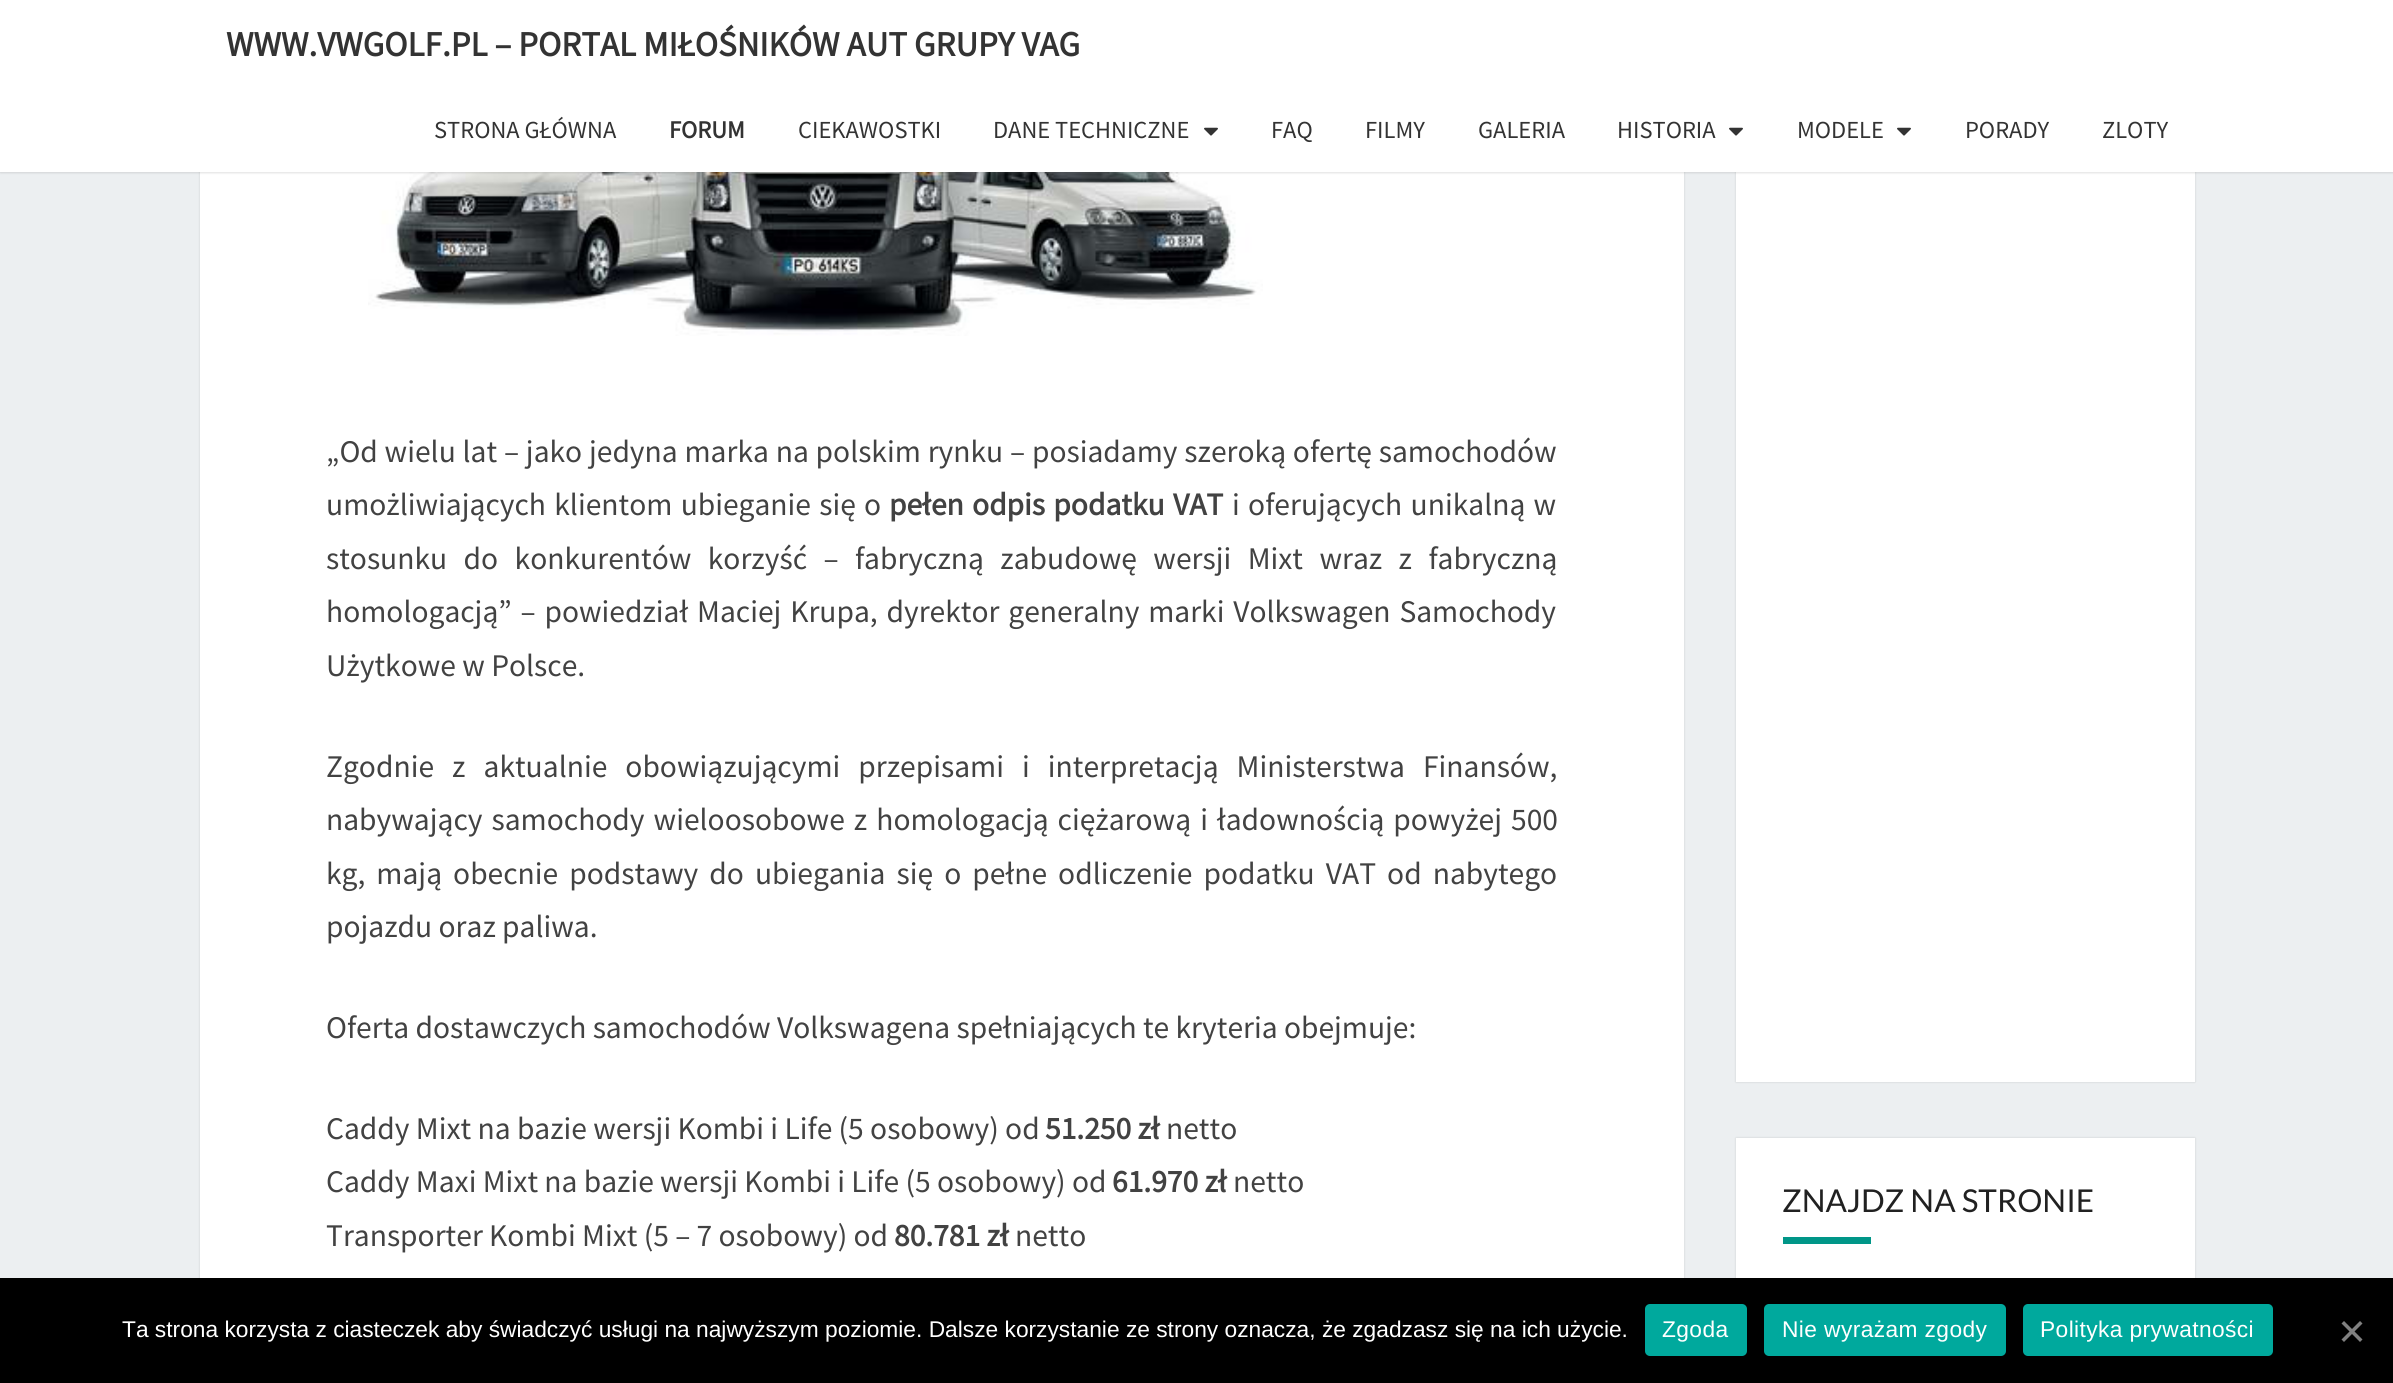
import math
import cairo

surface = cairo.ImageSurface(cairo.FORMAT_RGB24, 2393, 1383)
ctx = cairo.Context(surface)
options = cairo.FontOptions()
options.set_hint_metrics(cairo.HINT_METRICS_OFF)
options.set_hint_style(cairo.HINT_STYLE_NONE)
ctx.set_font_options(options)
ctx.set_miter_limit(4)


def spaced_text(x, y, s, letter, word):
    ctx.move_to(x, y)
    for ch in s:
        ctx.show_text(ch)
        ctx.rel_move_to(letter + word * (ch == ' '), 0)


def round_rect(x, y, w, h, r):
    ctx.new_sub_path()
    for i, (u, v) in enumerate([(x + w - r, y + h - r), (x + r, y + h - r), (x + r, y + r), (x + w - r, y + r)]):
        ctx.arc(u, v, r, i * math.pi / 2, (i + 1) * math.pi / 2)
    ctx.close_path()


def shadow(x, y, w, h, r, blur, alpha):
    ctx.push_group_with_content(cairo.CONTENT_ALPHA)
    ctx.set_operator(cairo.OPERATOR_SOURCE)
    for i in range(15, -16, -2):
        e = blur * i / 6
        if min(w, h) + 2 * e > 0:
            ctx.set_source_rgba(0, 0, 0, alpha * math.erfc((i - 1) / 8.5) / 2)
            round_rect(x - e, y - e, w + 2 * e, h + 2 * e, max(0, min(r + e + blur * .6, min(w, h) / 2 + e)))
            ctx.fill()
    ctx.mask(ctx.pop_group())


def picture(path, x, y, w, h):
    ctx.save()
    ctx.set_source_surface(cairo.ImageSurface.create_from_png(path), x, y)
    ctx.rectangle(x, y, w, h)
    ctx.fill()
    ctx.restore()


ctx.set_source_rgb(0.925, 0.937, 0.945)
ctx.paint()
ctx.set_source_rgb(0, 0, 0)
shadow(200, -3, 1484, 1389, 0, 1, 0.15)
ctx.set_source_rgb(1, 1, 1)
ctx.rectangle(200, 172, 1484, 1106)
ctx.fill()
picture("img2.png", 368, 172, 895, 164)
ctx.set_source_rgb(0, 0, 0)
shadow(1736, -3, 459, 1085, 0, 1, 0.15)
ctx.set_source_rgb(1, 1, 1)
ctx.rectangle(1736, 172, 459, 910)
ctx.fill()
ctx.set_source_rgb(0.392, 0.392, 0.392)
shadow(0, 2, 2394, 171, 0, 1, 0.2)
ctx.set_source_rgb(1, 1, 1)
ctx.rectangle(0, 0, 2393, 172)
ctx.fill()
ctx.select_font_face("Source Sans Pro", cairo.FONT_SLANT_NORMAL, cairo.FONT_WEIGHT_BOLD)
ctx.set_font_size(35)
ctx.set_source_rgb(0.2, 0.2, 0.2)
ctx.move_to(226, 56)
ctx.show_text("WWW.VWGOLF.PL – PORTAL MIŁOŚNIKÓW AUT GRUPY VAG")
ctx.select_font_face("Source Sans Pro")
ctx.set_font_size(24.5)
ctx.move_to(434, 138)
ctx.show_text("STRONA GŁÓWNA")
ctx.select_font_face("Source Sans Pro", cairo.FONT_SLANT_NORMAL, cairo.FONT_WEIGHT_BOLD)
ctx.move_to(669, 138)
ctx.show_text("FORUM")
ctx.select_font_face("Source Sans Pro")
ctx.move_to(798, 138)
ctx.show_text("CIEKAWOSTKI")
ctx.move_to(993, 138)
ctx.show_text("DANE TECHNICZNE")
picture("img1.png", 1204, 127, 14, 9)
ctx.move_to(1271, 138)
ctx.show_text("FAQ")
ctx.move_to(1365, 138)
ctx.show_text("FILMY")
ctx.move_to(1478, 138)
ctx.show_text("GALERIA")
ctx.move_to(1617, 138)
ctx.show_text("HISTORIA")
picture("img1.png", 1729, 127, 14, 9)
ctx.move_to(1797, 138)
ctx.show_text("MODELE")
picture("img1.png", 1897, 127, 14, 9)
ctx.move_to(1965, 138)
ctx.show_text("PORADY")
ctx.move_to(2102, 138)
ctx.show_text("ZLOTY")
ctx.set_font_size(31.5)
ctx.set_source_rgb(0.259, 0.259, 0.259)
spaced_text(326, 462, "„Od wielu lat – jako jedyna marka na polskim rynku – posiadamy szeroką ofertę samochodów", 0, 0.5)
spaced_text(326, 515, "umożliwiających klientom ubieganie się o", 0, 2)
ctx.select_font_face("Source Sans Pro", cairo.FONT_SLANT_NORMAL, cairo.FONT_WEIGHT_BOLD)
spaced_text(889, 515, "pełen odpis podatku VAT", 0, 2)
ctx.select_font_face("Source Sans Pro")
spaced_text(1232, 515, "i oferujących unikalną w", 0, 2)
spaced_text(326, 569, "stosunku do konkurentów korzyść – fabryczną zabudowę wersji Mixt wraz z fabryczną", 0, 10.1)
spaced_text(326, 622, "homologacją” – powiedział Maciej Krupa, dyrektor generalny marki Volkswagen Samochody", 0, 2.5)
ctx.move_to(326, 676)
ctx.show_text("Użytkowe w Polsce.")
spaced_text(326, 777, "Zgodnie z aktualnie obowiązującymi przepisami i interpretacją Ministerstwa Finansów,", 0, 11.75)
spaced_text(326, 830, "nabywający samochody wieloosobowe z homologacją ciężarową i ładownością powyżej 500", 0, 2.75)
spaced_text(326, 884, "kg, mają obecnie podstawy do ubiegania się o pełne odliczenie podatku VAT od nabytego", 0, 4.75)
ctx.move_to(326, 937)
ctx.show_text("pojazdu oraz paliwa.")
ctx.move_to(326, 1038)
ctx.show_text("Oferta dostawczych samochodów Volkswagena spełniających te kryteria obejmuje:")
ctx.move_to(326, 1139)
ctx.show_text("Caddy Mixt na bazie wersji Kombi i Life (5 osobowy) od")
ctx.select_font_face("Source Sans Pro", cairo.FONT_SLANT_NORMAL, cairo.FONT_WEIGHT_BOLD)
ctx.move_to(1045, 1139)
ctx.show_text("51.250 zł")
ctx.select_font_face("Source Sans Pro")
ctx.move_to(1166, 1139)
ctx.show_text("netto")
ctx.move_to(326, 1192)
ctx.show_text("Caddy Maxi Mixt na bazie wersji Kombi i Life (5 osobowy) od")
ctx.select_font_face("Source Sans Pro", cairo.FONT_SLANT_NORMAL, cairo.FONT_WEIGHT_BOLD)
ctx.move_to(1112, 1192)
ctx.show_text("61.970 zł")
ctx.select_font_face("Source Sans Pro")
ctx.move_to(1233, 1192)
ctx.show_text("netto")
ctx.move_to(326, 1246)
ctx.show_text("Transporter Kombi Mixt (5 – 7 osobowy) od")
ctx.select_font_face("Source Sans Pro", cairo.FONT_SLANT_NORMAL, cairo.FONT_WEIGHT_BOLD)
ctx.move_to(894, 1246)
ctx.show_text("80.781 zł")
ctx.select_font_face("Source Sans Pro")
ctx.move_to(1015, 1246)
ctx.show_text("netto")
ctx.set_source_rgb(0, 0, 0)
shadow(1736, 1138, 459, 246, 0, 1, 0.15)
ctx.set_source_rgb(1, 1, 1)
ctx.rectangle(1736, 1138, 459, 140)
ctx.fill()
ctx.select_font_face("Lato")
ctx.set_source_rgb(0.129, 0.129, 0.129)
ctx.move_to(1782, 1212)
ctx.show_text("ZNAJDZ NA STRONIE")
ctx.set_source_rgb(0, 0.588, 0.533)
ctx.rectangle(1783, 1237, 88, 7)
ctx.fill()
ctx.set_source_rgb(0, 0, 0)
ctx.rectangle(0, 1278, 2393, 105)
ctx.fill()
ctx.select_font_face("Liberation Sans")
ctx.set_font_size(22.75)
ctx.set_source_rgb(1, 1, 1)
ctx.move_to(122, 1337)
ctx.show_text("Ta strona korzysta z ciasteczek aby świadczyć usługi na najwyższym poziomie. Dalsze korzystanie ze strony oznacza, że zgadzasz się na ich użycie.")
ctx.set_source_rgb(0, 0.663, 0.616)
round_rect(1645, 1304, 102, 52, 5)
ctx.fill()
ctx.set_source_rgb(1, 1, 1)
spaced_text(1662, 1337, "Zgoda", 0.4, 0)
ctx.set_source_rgb(0, 0.663, 0.616)
round_rect(1764, 1304, 242, 52, 5)
ctx.fill()
ctx.set_source_rgb(1, 1, 1)
spaced_text(1782, 1337, "Nie wyrażam zgody", 0.4, 0)
ctx.set_source_rgb(0, 0.663, 0.616)
round_rect(2023, 1304, 250, 52, 5)
ctx.fill()
ctx.set_source_rgb(1, 1, 1)
spaced_text(2040, 1337, "Polityka prywatności", 0.4, 0)
ctx.set_source_rgb(0.502, 0.502, 0.502)
ctx.new_path()
ctx.move_to(2360, 1321)
ctx.line_to(2362.5, 1323.5)
ctx.line_to(2344, 1342)
ctx.line_to(2341.5, 1339.5)
ctx.close_path()
ctx.fill()
ctx.new_path()
ctx.move_to(2341.5, 1323.5)
ctx.line_to(2344, 1321)
ctx.line_to(2362.5, 1339.5)
ctx.line_to(2360, 1342)
ctx.close_path()
ctx.fill()
surface.write_to_png("page.png")
